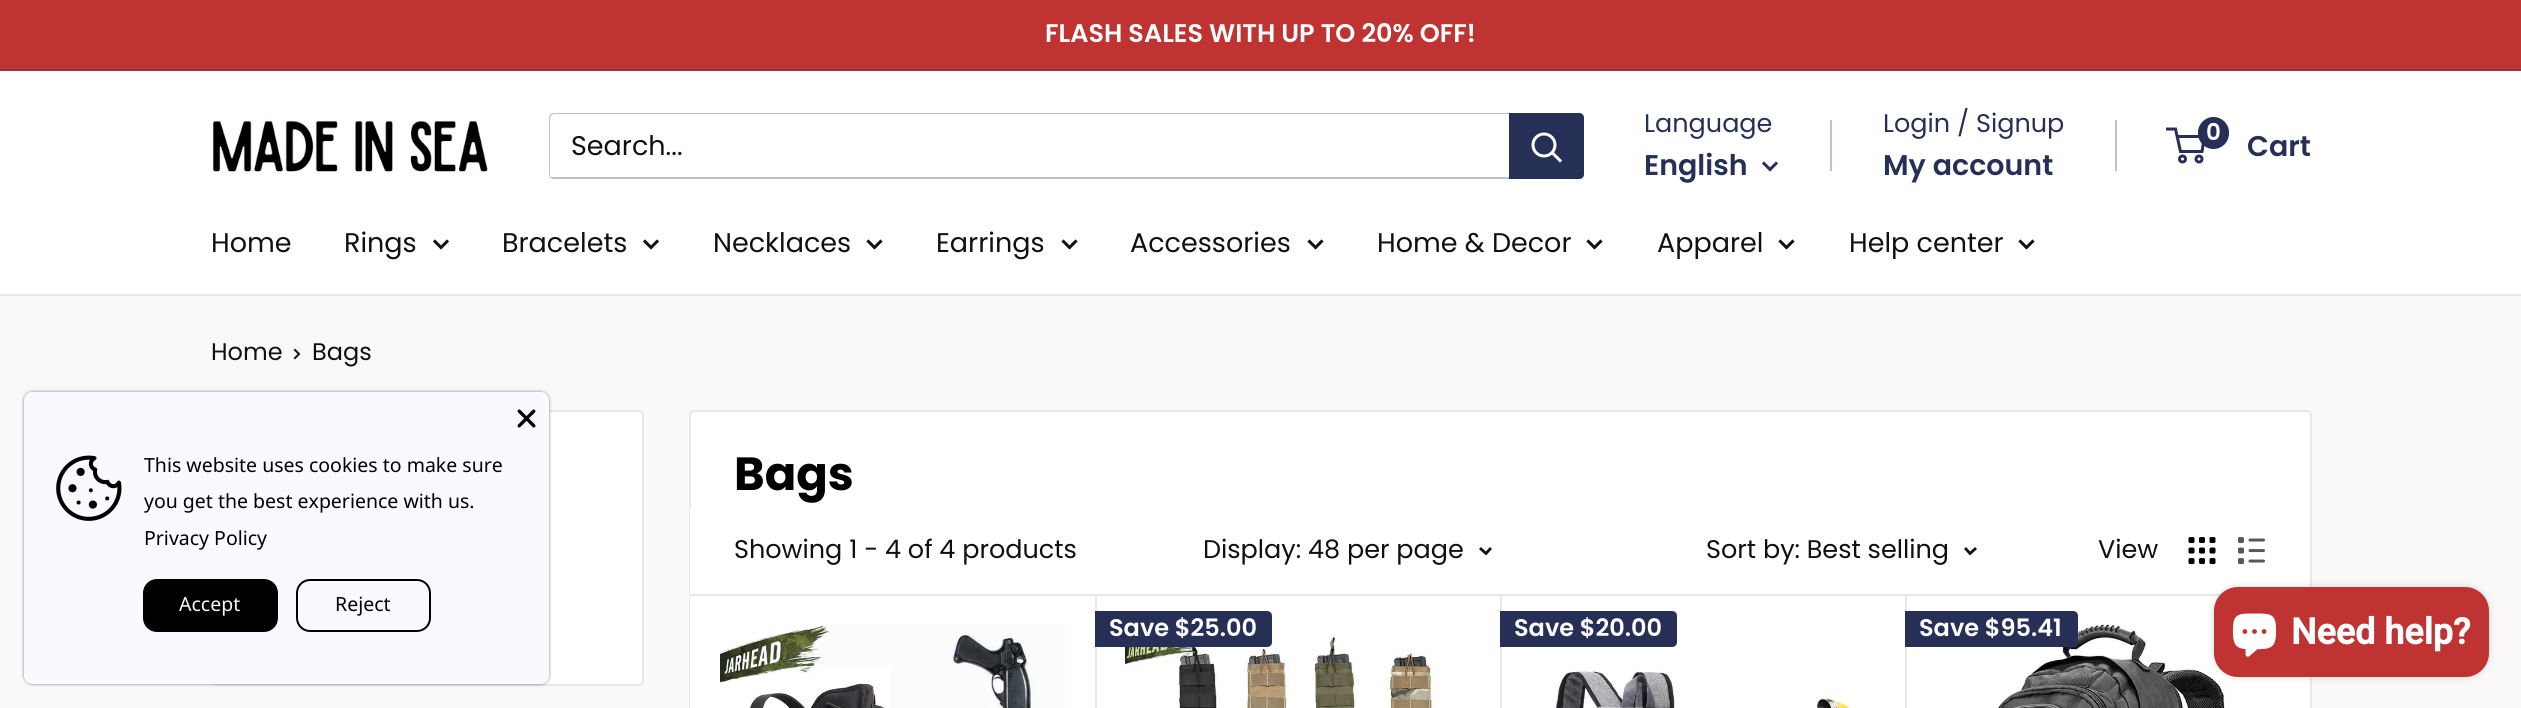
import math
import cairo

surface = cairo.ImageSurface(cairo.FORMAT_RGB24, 2521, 708)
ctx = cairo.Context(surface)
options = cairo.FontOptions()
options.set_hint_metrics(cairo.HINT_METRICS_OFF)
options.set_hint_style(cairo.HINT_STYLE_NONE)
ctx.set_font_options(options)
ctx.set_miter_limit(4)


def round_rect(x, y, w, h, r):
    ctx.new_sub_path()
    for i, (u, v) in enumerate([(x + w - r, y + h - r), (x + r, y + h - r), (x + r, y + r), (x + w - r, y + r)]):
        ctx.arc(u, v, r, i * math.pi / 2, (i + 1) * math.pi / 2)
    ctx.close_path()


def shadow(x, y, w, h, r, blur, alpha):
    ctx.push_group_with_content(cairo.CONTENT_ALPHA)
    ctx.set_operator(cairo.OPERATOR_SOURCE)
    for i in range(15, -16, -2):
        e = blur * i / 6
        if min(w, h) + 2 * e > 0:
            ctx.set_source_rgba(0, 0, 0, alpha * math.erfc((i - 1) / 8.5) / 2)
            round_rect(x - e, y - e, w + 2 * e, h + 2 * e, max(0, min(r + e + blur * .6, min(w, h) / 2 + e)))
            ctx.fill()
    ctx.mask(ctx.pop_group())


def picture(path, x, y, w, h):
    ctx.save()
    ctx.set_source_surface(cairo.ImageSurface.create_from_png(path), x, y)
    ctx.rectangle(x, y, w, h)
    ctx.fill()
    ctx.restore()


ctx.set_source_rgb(0.98, 0.969, 0.969)
ctx.paint()
ctx.set_source_rgb(0.749, 0.2, 0.2)
ctx.rectangle(0, 0, 2521, 69)
ctx.fill()
ctx.set_source_rgb(0.569, 0.196, 0.243)
ctx.rectangle(0, 69, 2521, 2)
ctx.fill()
ctx.select_font_face("Poppins SemiBold")
ctx.set_font_size(25.5)
ctx.set_source_rgb(1, 1, 1)
ctx.move_to(1045, 42)
ctx.show_text("FLASH SALES WITH UP TO 20% OFF!")
ctx.rectangle(0, 71, 2521, 223)
ctx.fill()
picture("img1.png", 212, 119, 276, 53)
ctx.set_source_rgb(0.745, 0.757, 0.8)
ctx.new_path()
ctx.move_to(549, 176)
ctx.curve_to(550, 178, 552, 179, 554, 179)
ctx.line_to(1579, 179)
ctx.curve_to(1582, 179, 1584, 177, 1584, 174)
ctx.line_to(1584, 118)
ctx.curve_to(1584, 116, 1583, 115, 1582, 114)
ctx.line_to(1582, 116)
ctx.line_to(1582, 172)
ctx.curve_to(1582, 175, 1580, 177, 1578, 177)
ctx.line_to(552, 177)
ctx.curve_to(551, 177, 550, 177, 549, 176)
ctx.close_path()
ctx.fill()
ctx.new_path()
ctx.move_to(555, 114)
ctx.line_to(1582, 114)
ctx.curve_to(1581, 113, 1580, 113, 1579, 113)
ctx.line_to(554, 113)
ctx.curve_to(551, 113, 549, 115, 549, 118)
ctx.line_to(549, 174)
ctx.curve_to(549, 176, 550, 177, 551, 178)
ctx.line_to(550, 176)
ctx.line_to(550, 117)
ctx.curve_to(551, 115, 553, 114, 555, 114)
ctx.close_path()
ctx.fill()
ctx.select_font_face("Poppins")
ctx.set_font_size(27)
ctx.set_source_rgb(0.063, 0.063, 0.063)
ctx.move_to(571, 155)
ctx.show_text("Search...")
ctx.set_source_rgb(0.149, 0.188, 0.337)
ctx.new_path()
ctx.move_to(1509, 113)
ctx.line_to(1579, 113)
ctx.curve_to(1582, 113, 1584, 115, 1584, 118)
ctx.line_to(1584, 174)
ctx.curve_to(1584, 177, 1582, 179, 1579, 179)
ctx.line_to(1509, 179)
ctx.close_path()
ctx.fill()
ctx.new_path()
ctx.move_to(1560, 160.5)
ctx.line_to(1552.5, 153)
ctx.set_source_rgb(1, 1, 1)
ctx.set_line_width(3)
ctx.set_line_cap(cairo.LINE_CAP_SQUARE)
ctx.stroke()
ctx.arc(1544, 145, 11, 0, 2 * math.pi)
ctx.set_line_cap(cairo.LINE_CAP_BUTT)
ctx.stroke()
ctx.set_font_size(25.5)
ctx.set_source_rgb(0.149, 0.188, 0.337)
ctx.move_to(1644, 132)
ctx.show_text("Language")
ctx.select_font_face("Poppins SemiBold")
ctx.set_font_size(28.5)
ctx.move_to(1644, 175)
ctx.show_text("English")
ctx.new_path()
ctx.move_to(1776, 163.5)
ctx.line_to(1770, 169.5)
ctx.line_to(1764, 163.5)
ctx.set_line_cap(cairo.LINE_CAP_SQUARE)
ctx.stroke()
ctx.set_source_rgb(0.745, 0.757, 0.8)
ctx.rectangle(1830, 120, 2, 51)
ctx.fill()
ctx.select_font_face("Poppins")
ctx.set_font_size(25.5)
ctx.set_source_rgb(0.149, 0.188, 0.337)
ctx.move_to(1883, 132)
ctx.show_text("Login / Signup")
ctx.set_source_rgb(0.745, 0.757, 0.8)
ctx.rectangle(2115, 120, 2, 51)
ctx.fill()
ctx.select_font_face("Poppins SemiBold")
ctx.set_font_size(28.5)
ctx.set_source_rgb(0.149, 0.188, 0.337)
ctx.move_to(1883, 175)
ctx.show_text("My account")
ctx.new_path()
ctx.arc(2182.5, 159, 3, 0, 2 * math.pi)
ctx.set_line_cap(cairo.LINE_CAP_BUTT)
ctx.stroke()
ctx.arc(2199, 159, 3, 0, 2 * math.pi)
ctx.stroke()
ctx.new_path()
ctx.move_to(2177, 136.5)
ctx.line_to(2204.5, 136.5)
ctx.line_to(2202, 151.5)
ctx.line_to(2180.5, 151.5)
ctx.line_to(2175.5, 129)
ctx.line_to(2166, 129)
ctx.stroke()
round_rect(2198, 117, 31, 32, 15.5)
ctx.fill()
ctx.set_font_size(23)
ctx.set_source_rgb(1, 1, 1)
ctx.move_to(2206, 140)
ctx.show_text("0")
ctx.set_font_size(28.5)
ctx.set_source_rgb(0.149, 0.188, 0.337)
ctx.move_to(2247, 156)
ctx.show_text("Cart")
ctx.set_source_rgb(0.91, 0.91, 0.91)
ctx.rectangle(0, 294, 2521, 2)
ctx.fill()
ctx.select_font_face("Poppins")
ctx.set_font_size(27)
ctx.set_source_rgb(0.063, 0.063, 0.063)
ctx.move_to(211, 252)
ctx.show_text("Home")
ctx.move_to(344, 252)
ctx.show_text("Rings")
ctx.new_path()
ctx.move_to(447, 241.5)
ctx.line_to(441, 247.5)
ctx.line_to(435, 241.5)
ctx.set_line_cap(cairo.LINE_CAP_SQUARE)
ctx.stroke()
ctx.move_to(502, 252)
ctx.show_text("Bracelets")
ctx.new_path()
ctx.move_to(657, 241.5)
ctx.line_to(651, 247.5)
ctx.line_to(645, 241.5)
ctx.stroke()
ctx.move_to(713, 252)
ctx.show_text("Necklaces")
ctx.new_path()
ctx.move_to(880.5, 241.5)
ctx.line_to(874.5, 247.5)
ctx.line_to(868.5, 241.5)
ctx.stroke()
ctx.move_to(936, 252)
ctx.show_text("Earrings")
ctx.new_path()
ctx.move_to(1075.5, 241.5)
ctx.line_to(1069.5, 247.5)
ctx.line_to(1063.5, 241.5)
ctx.stroke()
ctx.move_to(1130, 252)
ctx.show_text("Accessories")
ctx.new_path()
ctx.move_to(1321.5, 241.5)
ctx.line_to(1315.5, 247.5)
ctx.line_to(1309.5, 241.5)
ctx.stroke()
ctx.move_to(1377, 252)
ctx.show_text("Home & Decor")
ctx.new_path()
ctx.move_to(1600.5, 241.5)
ctx.line_to(1594.5, 247.5)
ctx.line_to(1588.5, 241.5)
ctx.stroke()
ctx.move_to(1657, 252)
ctx.show_text("Apparel")
ctx.new_path()
ctx.move_to(1792.5, 241.5)
ctx.line_to(1786.5, 247.5)
ctx.line_to(1780.5, 241.5)
ctx.stroke()
ctx.move_to(1849, 252)
ctx.show_text("Help center")
ctx.new_path()
ctx.move_to(2032.5, 241.5)
ctx.line_to(2026.5, 247.5)
ctx.line_to(2020.5, 241.5)
ctx.stroke()
ctx.set_font_size(24)
ctx.move_to(211, 360)
ctx.show_text("Home")
ctx.new_path()
ctx.move_to(295, 350)
ctx.line_to(299, 354)
ctx.line_to(295, 358)
ctx.set_line_width(2)
ctx.stroke()
ctx.move_to(312, 360)
ctx.show_text("Bags")
ctx.set_source_rgb(1, 1, 1)
round_rect(213, 411, 430, 274, 4)
ctx.fill_preserve()
ctx.set_source_rgb(0.91, 0.91, 0.91)
ctx.set_line_cap(cairo.LINE_CAP_BUTT)
ctx.stroke()
ctx.set_source_rgb(1, 1, 1)
round_rect(690, 411, 1621, 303, 4)
ctx.fill_preserve()
ctx.set_source_rgb(0.91, 0.91, 0.91)
ctx.stroke()
ctx.select_font_face("Poppins", cairo.FONT_SLANT_NORMAL, cairo.FONT_WEIGHT_BOLD)
ctx.set_font_size(46.5)
ctx.set_source_rgb(0, 0, 0)
ctx.move_to(734, 490)
ctx.show_text("Bags")
ctx.set_source_rgb(1, 1, 1)
round_rect(690, 594, 1620, 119, 5)
ctx.fill()
ctx.new_path()
ctx.move_to(695, 594)
ctx.line_to(1095, 594)
ctx.line_to(1095, 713)
ctx.line_to(695, 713)
ctx.curve_to(692, 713, 690, 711, 690, 708)
ctx.line_to(690, 599)
ctx.curve_to(690, 596, 692, 594, 695, 594)
ctx.close_path()
ctx.fill()
ctx.set_source_rgb(0.91, 0.91, 0.91)
ctx.new_path()
ctx.move_to(693, 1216)
ctx.line_to(695, 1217)
ctx.line_to(1097, 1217)
ctx.line_to(1097, 594)
ctx.line_to(1095, 594)
ctx.line_to(1095, 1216)
ctx.close_path()
ctx.fill()
ctx.new_path()
ctx.move_to(1097, 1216)
ctx.line_to(1097, 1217)
ctx.line_to(1502, 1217)
ctx.line_to(1502, 594)
ctx.line_to(1500, 594)
ctx.line_to(1500, 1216)
ctx.close_path()
ctx.fill()
ctx.new_path()
ctx.move_to(1502, 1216)
ctx.line_to(1502, 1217)
ctx.line_to(1907, 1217)
ctx.line_to(1907, 594)
ctx.line_to(1905, 594)
ctx.line_to(1905, 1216)
ctx.close_path()
ctx.fill()
ctx.rectangle(690, 594, 1531, 2)
ctx.fill()
ctx.set_source_rgb(1, 1, 1)
ctx.rectangle(690, 507, 1, 87)
ctx.fill()
ctx.select_font_face("Poppins")
ctx.set_font_size(25.5)
ctx.set_source_rgb(0.063, 0.063, 0.063)
ctx.move_to(734, 558)
ctx.show_text("Showing 1 - 4 of 4 products")
ctx.move_to(1203, 558)
ctx.show_text("Display: 48 per page")
ctx.new_path()
ctx.move_to(1490, 549)
ctx.line_to(1486, 553.5)
ctx.line_to(1481, 549)
ctx.set_line_width(2.8)
ctx.set_line_cap(cairo.LINE_CAP_SQUARE)
ctx.stroke()
ctx.move_to(1706, 558)
ctx.show_text("Sort by: Best selling")
ctx.new_path()
ctx.move_to(1975, 549)
ctx.line_to(1970, 553.5)
ctx.line_to(1966, 549)
ctx.stroke()
ctx.move_to(2098, 558)
ctx.show_text("View")
picture("img2.png", 2188, 537, 28, 28)
picture("img3.png", 2238, 537, 27, 28)
picture("img4.png", 720, 624, 345, 84)
picture("img5.png", 1125, 624, 308, 84)
ctx.set_source_rgb(0.149, 0.188, 0.337)
ctx.new_path()
ctx.move_to(1095, 611)
ctx.line_to(1267, 611)
ctx.curve_to(1270, 611, 1272, 613, 1272, 616)
ctx.line_to(1272, 642)
ctx.curve_to(1272, 645, 1270, 647, 1267, 647)
ctx.line_to(1095, 647)
ctx.close_path()
ctx.fill()
ctx.select_font_face("Poppins SemiBold")
ctx.set_font_size(24)
ctx.set_source_rgb(1, 1, 1)
ctx.move_to(1109, 636)
ctx.show_text("Save $25.00")
ctx.set_source_rgb(0.149, 0.188, 0.337)
ctx.new_path()
ctx.move_to(1500, 611)
ctx.line_to(1672, 611)
ctx.curve_to(1675, 611, 1677, 613, 1677, 616)
ctx.line_to(1677, 642)
ctx.curve_to(1677, 645, 1675, 647, 1672, 647)
ctx.line_to(1500, 647)
ctx.close_path()
ctx.fill()
ctx.set_source_rgb(1, 1, 1)
ctx.move_to(1514, 636)
ctx.show_text("Save $20.00")
picture("img6.png", 1554, 670, 301, 38)
picture("img7.png", 1995, 624, 230, 84)
ctx.set_source_rgb(0.149, 0.188, 0.337)
ctx.new_path()
ctx.move_to(1905, 611)
ctx.line_to(2073, 611)
ctx.curve_to(2076, 611, 2078, 613, 2078, 616)
ctx.line_to(2078, 642)
ctx.curve_to(2078, 645, 2076, 647, 2073, 647)
ctx.line_to(1905, 647)
ctx.close_path()
ctx.fill()
ctx.set_source_rgb(1, 1, 1)
ctx.move_to(1919, 636)
ctx.show_text("Save $95.41")
ctx.set_source_rgb(0, 0, 0)
shadow(24, 392, 525, 292, 8, 1.5, 0.5)
ctx.set_source_rgb(0.973, 0.973, 1)
round_rect(24, 392, 525, 292, 8)
ctx.fill()
picture("img8.png", 517, 409, 19, 19)
picture("img9.png", 56, 455, 66, 66)
ctx.select_font_face("Noto Sans")
ctx.set_font_size(19.5)
ctx.set_source_rgb(0, 0, 0)
ctx.move_to(144, 472)
ctx.show_text("This website uses cookies to make sure")
ctx.move_to(144, 508)
ctx.show_text("you get the best experience with us.")
ctx.move_to(144, 545)
ctx.show_text("Privacy Policy")
round_rect(143, 579, 135, 53, 14)
ctx.fill()
ctx.set_source_rgb(0.973, 0.973, 0.973)
ctx.move_to(179, 611)
ctx.show_text("Accept")
round_rect(297, 580, 133, 51, 13)
ctx.set_source_rgb(0, 0, 0)
ctx.set_line_width(2)
ctx.set_line_cap(cairo.LINE_CAP_BUTT)
ctx.stroke()
ctx.move_to(335, 611)
ctx.show_text("Reject")
ctx.set_source_rgb(0, 0, 0)
shadow(2214, 587, 275, 90, 24, 4, 0.15)
ctx.set_source_rgb(0.749, 0.2, 0.2)
round_rect(2214, 587, 275, 90, 24)
ctx.fill()
picture("img10.png", 2232, 613, 45, 44)
ctx.select_font_face("Roboto", cairo.FONT_SLANT_NORMAL, cairo.FONT_WEIGHT_BOLD)
ctx.set_font_size(36)
ctx.set_source_rgb(1, 1, 1)
ctx.move_to(2291, 644)
ctx.show_text("Need help?")
surface.write_to_png("page.png")
